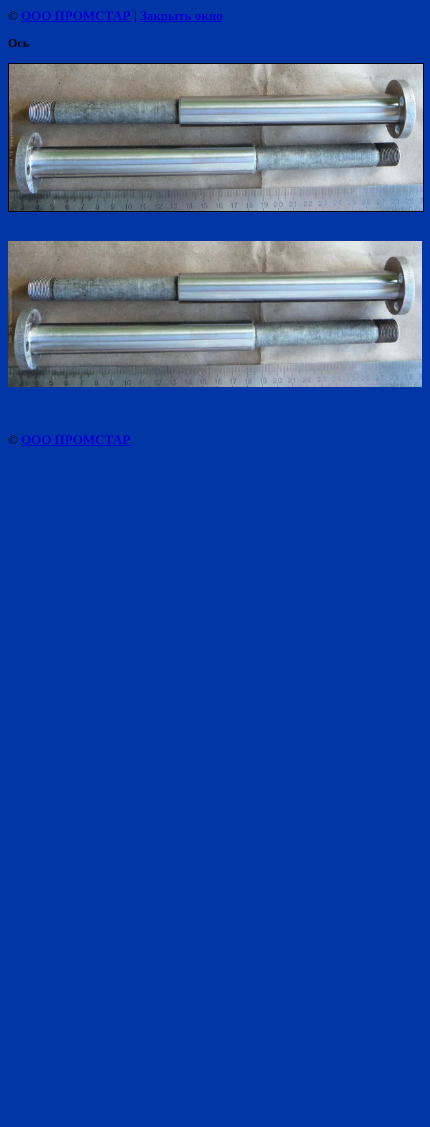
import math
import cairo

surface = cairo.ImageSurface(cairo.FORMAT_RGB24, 430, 1127)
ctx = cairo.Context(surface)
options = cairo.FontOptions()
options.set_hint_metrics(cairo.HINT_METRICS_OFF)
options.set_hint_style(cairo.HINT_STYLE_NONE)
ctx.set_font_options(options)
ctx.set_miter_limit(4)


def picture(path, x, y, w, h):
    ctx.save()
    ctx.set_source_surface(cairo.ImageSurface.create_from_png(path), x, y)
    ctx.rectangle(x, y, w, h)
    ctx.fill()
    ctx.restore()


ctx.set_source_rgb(0.008, 0.212, 0.655)
ctx.paint()
ctx.select_font_face("Liberation Serif")
ctx.set_font_size(13)
ctx.set_source_rgb(0, 0, 0)
ctx.move_to(8, 20)
ctx.show_text("©")
ctx.select_font_face("Liberation Serif", cairo.FONT_SLANT_NORMAL, cairo.FONT_WEIGHT_BOLD)
ctx.set_source_rgb(0, 0, 0.8)
ctx.move_to(21, 20)
ctx.show_text("ООО ПРОМСТАР")
ctx.rectangle(21, 21, 110, 1)
ctx.fill()
ctx.select_font_face("Liberation Serif")
ctx.set_source_rgb(0, 0, 0)
ctx.move_to(134, 20)
ctx.show_text("|")
ctx.set_source_rgb(0, 0, 0.8)
ctx.rectangle(140, 21, 82, 1)
ctx.fill()
ctx.select_font_face("Liberation Serif", cairo.FONT_SLANT_NORMAL, cairo.FONT_WEIGHT_BOLD)
ctx.move_to(140, 20)
ctx.show_text("Закрыть окно")
ctx.set_font_size(12)
ctx.set_source_rgb(0, 0, 0)
ctx.move_to(8, 47)
ctx.show_text("Ось")
ctx.rectangle(8.5, 63.5, 415, 148)
ctx.set_line_width(1)
ctx.stroke()
picture("img1.png", 9, 64, 414, 147)
picture("img2.png", 8, 241, 414, 146)
ctx.select_font_face("Liberation Serif")
ctx.set_font_size(13)
ctx.move_to(8, 444)
ctx.show_text("©")
ctx.select_font_face("Liberation Serif", cairo.FONT_SLANT_NORMAL, cairo.FONT_WEIGHT_BOLD)
ctx.set_source_rgb(0, 0, 0.8)
ctx.move_to(21, 444)
ctx.show_text("ООО ПРОМСТАР")
ctx.rectangle(21, 445, 110, 1)
ctx.fill()
surface.write_to_png("page.png")
